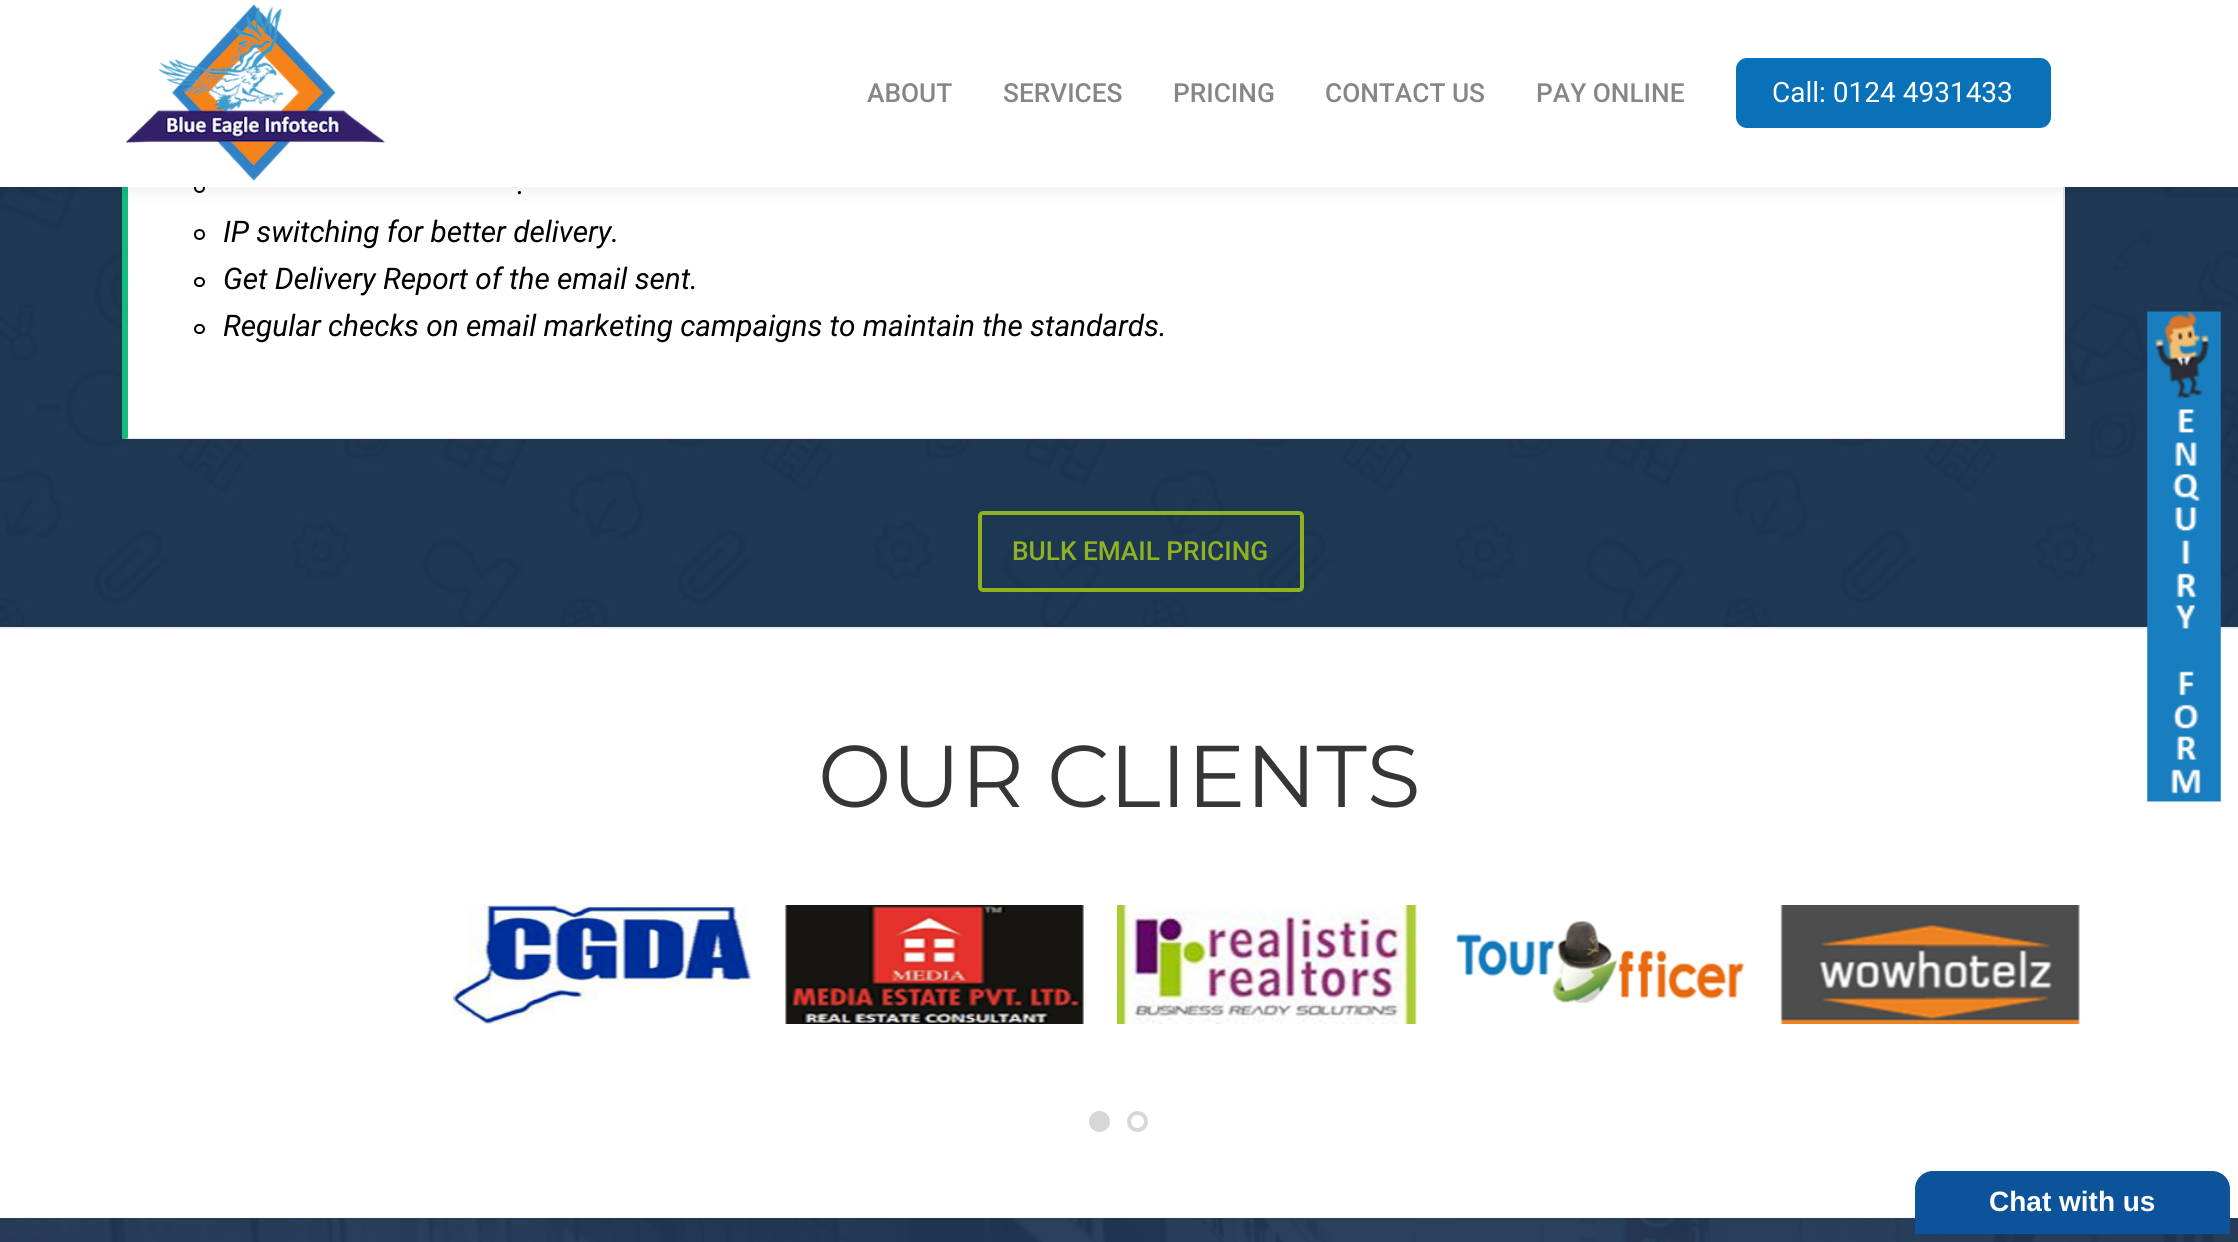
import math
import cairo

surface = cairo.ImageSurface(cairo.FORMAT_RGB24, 2238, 1242)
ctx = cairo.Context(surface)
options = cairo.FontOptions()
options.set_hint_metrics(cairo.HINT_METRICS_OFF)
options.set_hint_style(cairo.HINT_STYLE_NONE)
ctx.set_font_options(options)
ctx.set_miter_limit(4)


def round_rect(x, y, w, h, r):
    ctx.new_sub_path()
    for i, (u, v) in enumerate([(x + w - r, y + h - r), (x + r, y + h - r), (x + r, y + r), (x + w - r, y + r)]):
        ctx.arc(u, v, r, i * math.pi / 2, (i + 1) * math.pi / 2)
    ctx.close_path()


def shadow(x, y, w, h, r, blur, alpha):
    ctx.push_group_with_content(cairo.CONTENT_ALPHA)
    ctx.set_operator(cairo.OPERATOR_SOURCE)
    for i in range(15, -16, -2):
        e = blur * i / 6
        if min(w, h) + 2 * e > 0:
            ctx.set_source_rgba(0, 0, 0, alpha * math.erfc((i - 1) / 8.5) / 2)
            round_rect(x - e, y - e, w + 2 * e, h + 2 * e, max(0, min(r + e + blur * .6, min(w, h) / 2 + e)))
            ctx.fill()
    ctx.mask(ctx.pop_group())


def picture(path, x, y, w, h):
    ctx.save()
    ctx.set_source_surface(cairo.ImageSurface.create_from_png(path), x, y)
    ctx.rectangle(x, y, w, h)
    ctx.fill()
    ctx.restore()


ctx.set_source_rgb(1, 1, 1)
ctx.paint()
picture("img2.png", 0, 187, 2238, 440)
ctx.set_source_rgb(1, 1, 1)
ctx.rectangle(128, 187, 1935, 251)
ctx.fill()
ctx.set_source_rgb(0.898, 0.898, 0.898)
ctx.rectangle(2063, 187, 2, 252)
ctx.fill()
ctx.new_path()
ctx.move_to(2065, 439)
ctx.line_to(122, 439)
ctx.line_to(128, 438)
ctx.line_to(2063, 438)
ctx.close_path()
ctx.fill()
ctx.set_source_rgb(0.059, 0.745, 0.486)
ctx.new_path()
ctx.move_to(122, 439)
ctx.line_to(122, -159)
ctx.line_to(128, -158)
ctx.line_to(128, 438)
ctx.close_path()
ctx.fill()
ctx.arc(199.5, 187.5, 4.5, 0, 2 * math.pi)
ctx.set_source_rgb(0, 0, 0)
ctx.stroke()
ctx.set_source_rgb(0, 0, 0)
shadow(0, 0, 2238, 187, 0, 9, 0.1)
ctx.set_source_rgb(1, 1, 1)
ctx.rectangle(0, 0, 2238, 187)
ctx.fill()
picture("img1.png", 125, 4, 260, 177)
ctx.select_font_face("Roboto Medium")
ctx.set_font_size(26.25)
ctx.set_source_rgb(0.525, 0.525, 0.525)
ctx.move_to(867, 102)
ctx.show_text("ABOUT")
ctx.move_to(1003, 102)
ctx.show_text("SERVICES")
ctx.move_to(1173, 102)
ctx.show_text("PRICING")
ctx.move_to(1325, 102)
ctx.show_text("CONTACT US")
ctx.move_to(1536, 102)
ctx.show_text("PAY ONLINE")
ctx.set_source_rgb(0.039, 0.443, 0.718)
round_rect(1736, 58, 315, 70, 11)
ctx.fill()
ctx.select_font_face("Roboto")
ctx.set_font_size(28)
ctx.set_source_rgb(1, 1, 1)
ctx.move_to(1772, 102)
ctx.show_text("Call: 0124 4931433")
ctx.set_source_rgb(0.929, 0.929, 0.929)
ctx.rectangle(0, 627, 2238, 2)
ctx.fill()
ctx.select_font_face("Roboto", cairo.FONT_SLANT_ITALIC)
ctx.set_font_size(29.75)
ctx.set_source_rgb(0, 0, 0)
ctx.move_to(517, 194)
ctx.show_text(".")
ctx.new_path()
ctx.arc(199.5, 234.5, 4.5, 0, 2 * math.pi)
ctx.stroke()
ctx.move_to(223, 242)
ctx.show_text("IP switching for better delivery.")
round_rect(195, 278, 9, 8, 4)
ctx.stroke()
ctx.move_to(223, 289)
ctx.show_text("Get Delivery Report of the email sent.")
round_rect(195, 325, 9, 8, 4)
ctx.stroke()
ctx.move_to(223, 336)
ctx.show_text("Regular checks on email marketing campaigns to maintain the standards.")
round_rect(980, 513, 322, 77, 3)
ctx.set_source_rgb(0.557, 0.698, 0.125)
ctx.set_line_width(4)
ctx.stroke()
ctx.select_font_face("Roboto Medium")
ctx.set_font_size(26.25)
ctx.move_to(1012, 560)
ctx.show_text("BULK EMAIL PRICING")
picture("img3.png", 2147, 311, 74, 491)
ctx.select_font_face("Montserrat")
ctx.set_font_size(87.5)
ctx.set_source_rgb(0.212, 0.212, 0.212)
ctx.move_to(818, 807)
ctx.show_text("OUR CLIENTS")
picture("img4.png", 453, 905, 300, 119)
picture("img5.png", 785, 905, 299, 119)
picture("img6.png", 1117, 905, 300, 119)
picture("img7.png", 1456, 920, 289, 84)
picture("img8.png", 1780, 905, 300, 119)
ctx.set_source_rgb(0.843, 0.843, 0.843)
ctx.arc(1099.5, 1121.5, 8.5, 0, 2 * math.pi)
ctx.fill_preserve()
ctx.stroke()
ctx.arc(1137.5, 1121.5, 8.5, 0, 2 * math.pi)
ctx.stroke()
picture("img9.png", 0, 1218, 2238, 24)
ctx.set_source_rgb(0.047, 0.325, 0.604)
ctx.new_path()
ctx.move_to(1933, 1171)
ctx.line_to(2212, 1171)
ctx.curve_to(2222, 1171, 2230, 1179, 2230, 1189)
ctx.line_to(2230, 1234)
ctx.line_to(1915, 1234)
ctx.line_to(1915, 1189)
ctx.curve_to(1915, 1179, 1923, 1171, 1933, 1171)
ctx.close_path()
ctx.fill()
ctx.select_font_face("Liberation Sans", cairo.FONT_SLANT_NORMAL, cairo.FONT_WEIGHT_BOLD)
ctx.set_font_size(28)
ctx.set_source_rgb(1, 1, 1)
ctx.move_to(1989, 1211)
ctx.show_text("Chat with us")
surface.write_to_png("page.png")
